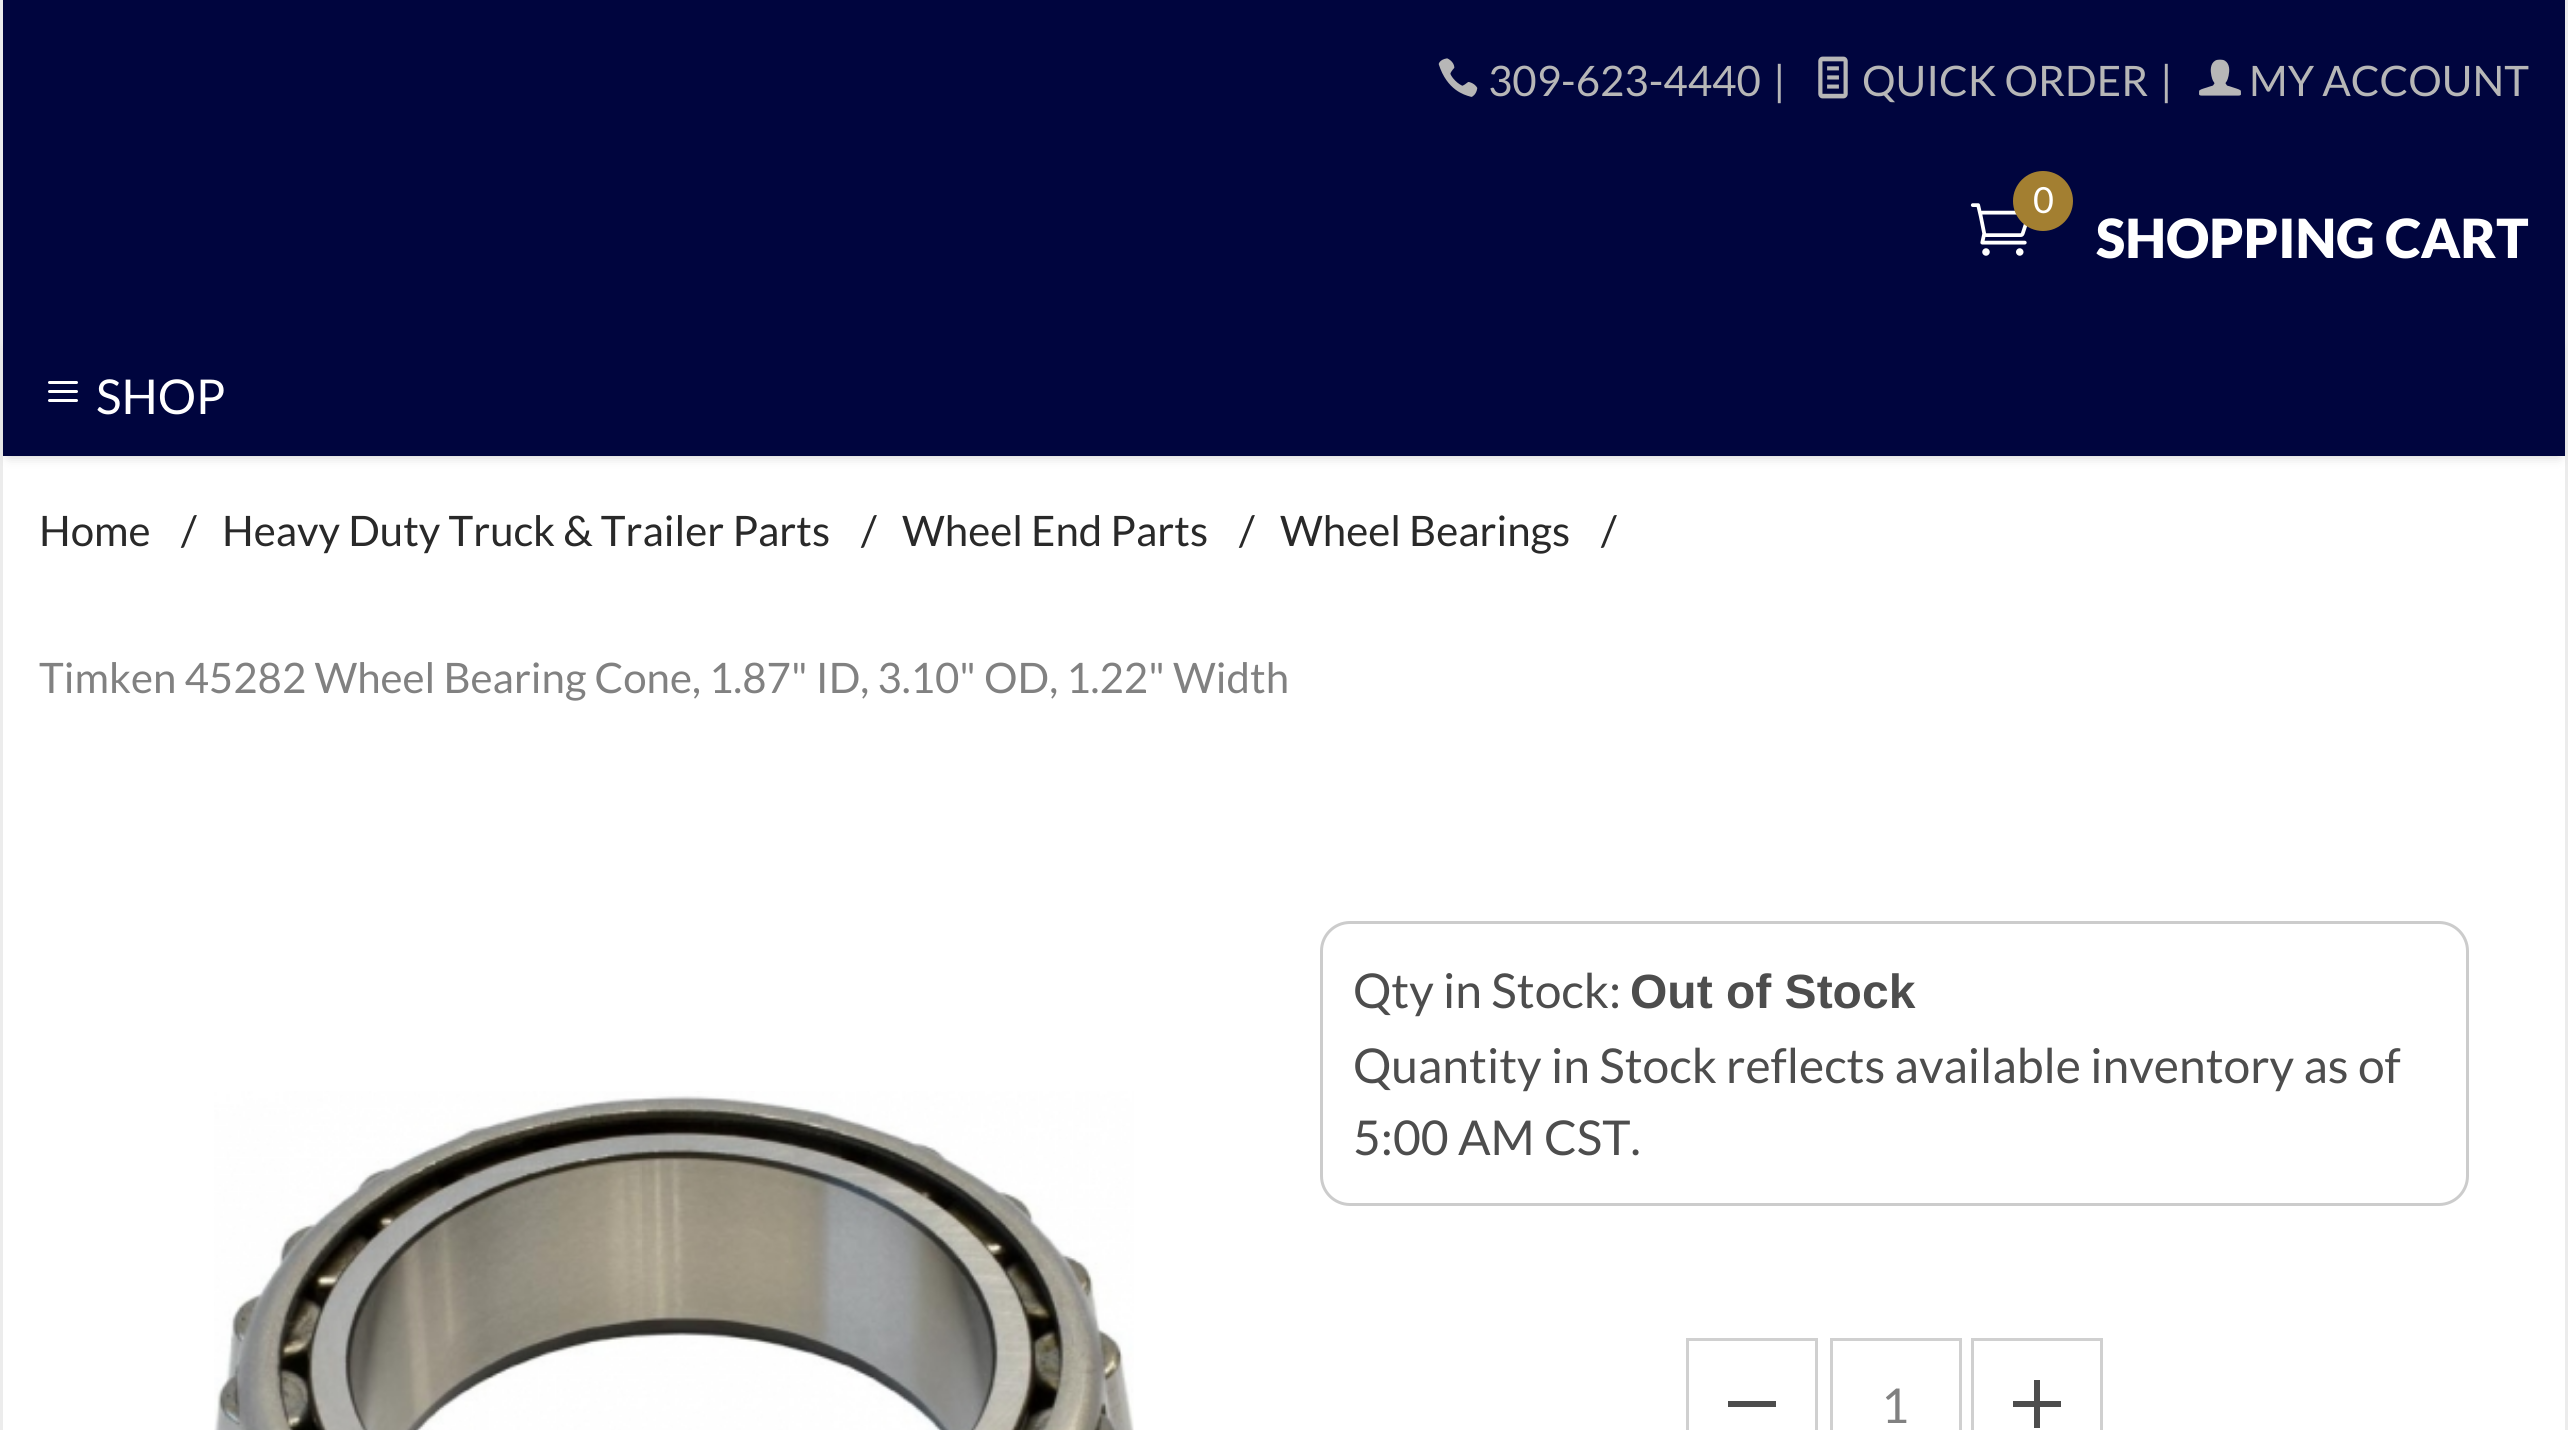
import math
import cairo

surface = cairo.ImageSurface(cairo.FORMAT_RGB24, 2568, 1430)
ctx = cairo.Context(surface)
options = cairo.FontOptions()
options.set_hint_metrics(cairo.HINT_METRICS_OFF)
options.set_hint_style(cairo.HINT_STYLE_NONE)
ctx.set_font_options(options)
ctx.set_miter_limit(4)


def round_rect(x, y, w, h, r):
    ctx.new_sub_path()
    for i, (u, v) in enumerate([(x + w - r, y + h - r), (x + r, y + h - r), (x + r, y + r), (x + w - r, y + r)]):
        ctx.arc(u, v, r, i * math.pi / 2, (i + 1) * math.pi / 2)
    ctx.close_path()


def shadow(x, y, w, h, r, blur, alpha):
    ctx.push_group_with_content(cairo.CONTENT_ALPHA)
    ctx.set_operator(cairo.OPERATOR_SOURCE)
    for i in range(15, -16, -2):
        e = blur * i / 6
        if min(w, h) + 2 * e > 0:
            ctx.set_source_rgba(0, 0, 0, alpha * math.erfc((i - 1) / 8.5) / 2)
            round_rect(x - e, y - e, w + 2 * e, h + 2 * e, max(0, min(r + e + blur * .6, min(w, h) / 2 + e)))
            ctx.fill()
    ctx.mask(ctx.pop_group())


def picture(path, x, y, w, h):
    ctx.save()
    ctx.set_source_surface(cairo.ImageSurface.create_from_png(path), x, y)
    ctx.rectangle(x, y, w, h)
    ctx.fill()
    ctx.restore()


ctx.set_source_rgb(1, 1, 1)
ctx.paint()
ctx.set_source_rgb(0.922, 0.922, 0.922)
ctx.rectangle(2565, 0, 3, 1430)
ctx.fill()
ctx.rectangle(0, 0, 3, 1430)
ctx.fill()
ctx.set_source_rgb(0, 0.02, 0.243)
ctx.rectangle(3, 0, 2562, 456)
ctx.fill()
picture("img1.png", 1438, 58, 40, 39)
ctx.select_font_face("Lato")
ctx.set_font_size(42)
ctx.set_source_rgb(0.718, 0.718, 0.718)
ctx.move_to(1488, 96)
ctx.show_text("309-623-4440")
ctx.move_to(1773, 96)
ctx.show_text("|")
picture("img2.png", 1818, 56, 30, 43)
ctx.move_to(1862, 96)
ctx.show_text("QUICK ORDER")
ctx.move_to(2160, 96)
ctx.show_text("|")
picture("img3.png", 2199, 59, 42, 37)
ctx.move_to(2249, 96)
ctx.show_text("MY ACCOUNT")
picture("img4.png", 1970, 203, 58, 53)
ctx.set_source_rgb(0.639, 0.498, 0.192)
ctx.arc(2043, 201, 30, 0, 2 * math.pi)
ctx.fill()
ctx.set_font_size(36)
ctx.set_source_rgb(1, 1, 1)
ctx.move_to(2033, 213)
ctx.show_text("0")
ctx.select_font_face("Lato Black")
ctx.set_font_size(54)
ctx.move_to(2096, 258)
ctx.show_text("SHOPPING CART")
ctx.save()
ctx.set_fill_rule(cairo.FILL_RULE_EVEN_ODD)
ctx.new_path()
ctx.move_to(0, 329)
ctx.line_to(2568, 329)
ctx.line_to(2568, 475)
ctx.line_to(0, 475)
ctx.close_path()
ctx.move_to(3, 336)
ctx.line_to(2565, 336)
ctx.line_to(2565, 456)
ctx.line_to(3, 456)
ctx.close_path()
ctx.clip()
ctx.set_source_rgb(0, 0, 0)
shadow(9, 348, 2550, 108, 0, 6, 0.2)
ctx.restore()
picture("img5.png", 48, 381, 30, 21)
ctx.select_font_face("Lato")
ctx.set_font_size(48)
ctx.move_to(96, 414)
ctx.show_text("SHOP")
ctx.set_font_size(42)
ctx.set_source_rgb(0.161, 0.161, 0.161)
ctx.move_to(39, 546)
ctx.show_text("Home")
ctx.move_to(181, 546)
ctx.show_text("/")
ctx.move_to(222, 546)
ctx.show_text("Heavy Duty Truck & Trailer Parts")
ctx.move_to(861, 546)
ctx.show_text("/")
ctx.move_to(902, 546)
ctx.show_text("Wheel End Parts")
ctx.move_to(1239, 546)
ctx.show_text("/")
ctx.move_to(1280, 546)
ctx.show_text("Wheel Bearings")
ctx.move_to(1601, 546)
ctx.show_text("/")
ctx.set_source_rgb(0.506, 0.506, 0.506)
ctx.move_to(39, 693)
ctx.show_text("Timken 45282 Wheel Bearing Cone, 1.87\" ID, 3.10\" OD, 1.22\" Width")
picture("img6.png", 214, 1091, 920, 339)
round_rect(1321.5, 922.5, 1146, 282, 28.5)
ctx.set_source_rgb(0.8, 0.8, 0.8)
ctx.set_line_width(3)
ctx.stroke()
ctx.set_font_size(48)
ctx.set_source_rgb(0.302, 0.302, 0.302)
ctx.move_to(1353, 1008)
ctx.show_text("Qty in Stock:")
ctx.select_font_face("Liberation Sans", cairo.FONT_SLANT_NORMAL, cairo.FONT_WEIGHT_BOLD)
ctx.move_to(1630, 1008)
ctx.show_text("Out of Stock")
ctx.select_font_face("Lato")
ctx.move_to(1353, 1083)
ctx.show_text("Quantity in Stock reflects available inventory as of")
ctx.move_to(1353, 1155)
ctx.show_text("5:00 AM CST.")
ctx.rectangle(1687.5, 1339.5, 129, 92)
ctx.set_source_rgb(0.816, 0.816, 0.816)
ctx.stroke()
ctx.set_source_rgb(0.302, 0.302, 0.302)
ctx.rectangle(1728, 1401, 48, 6)
ctx.fill()
ctx.rectangle(1831.5, 1339.5, 129, 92)
ctx.set_source_rgb(0.816, 0.816, 0.816)
ctx.stroke()
ctx.set_source_rgb(0.506, 0.506, 0.506)
ctx.move_to(1881, 1423)
ctx.show_text("1")
ctx.rectangle(1972.5, 1339.5, 129, 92)
ctx.set_source_rgb(0.816, 0.816, 0.816)
ctx.stroke()
ctx.set_source_rgb(0.302, 0.302, 0.302)
ctx.new_path()
ctx.move_to(2040, 1401)
ctx.line_to(2040, 1380)
ctx.line_to(2034, 1380)
ctx.line_to(2034, 1401)
ctx.line_to(2013, 1401)
ctx.line_to(2013, 1407)
ctx.line_to(2034, 1407)
ctx.line_to(2034, 1428)
ctx.line_to(2040, 1428)
ctx.line_to(2040, 1407)
ctx.line_to(2061, 1407)
ctx.line_to(2061, 1401)
ctx.close_path()
ctx.fill()
surface.write_to_png("page.png")
